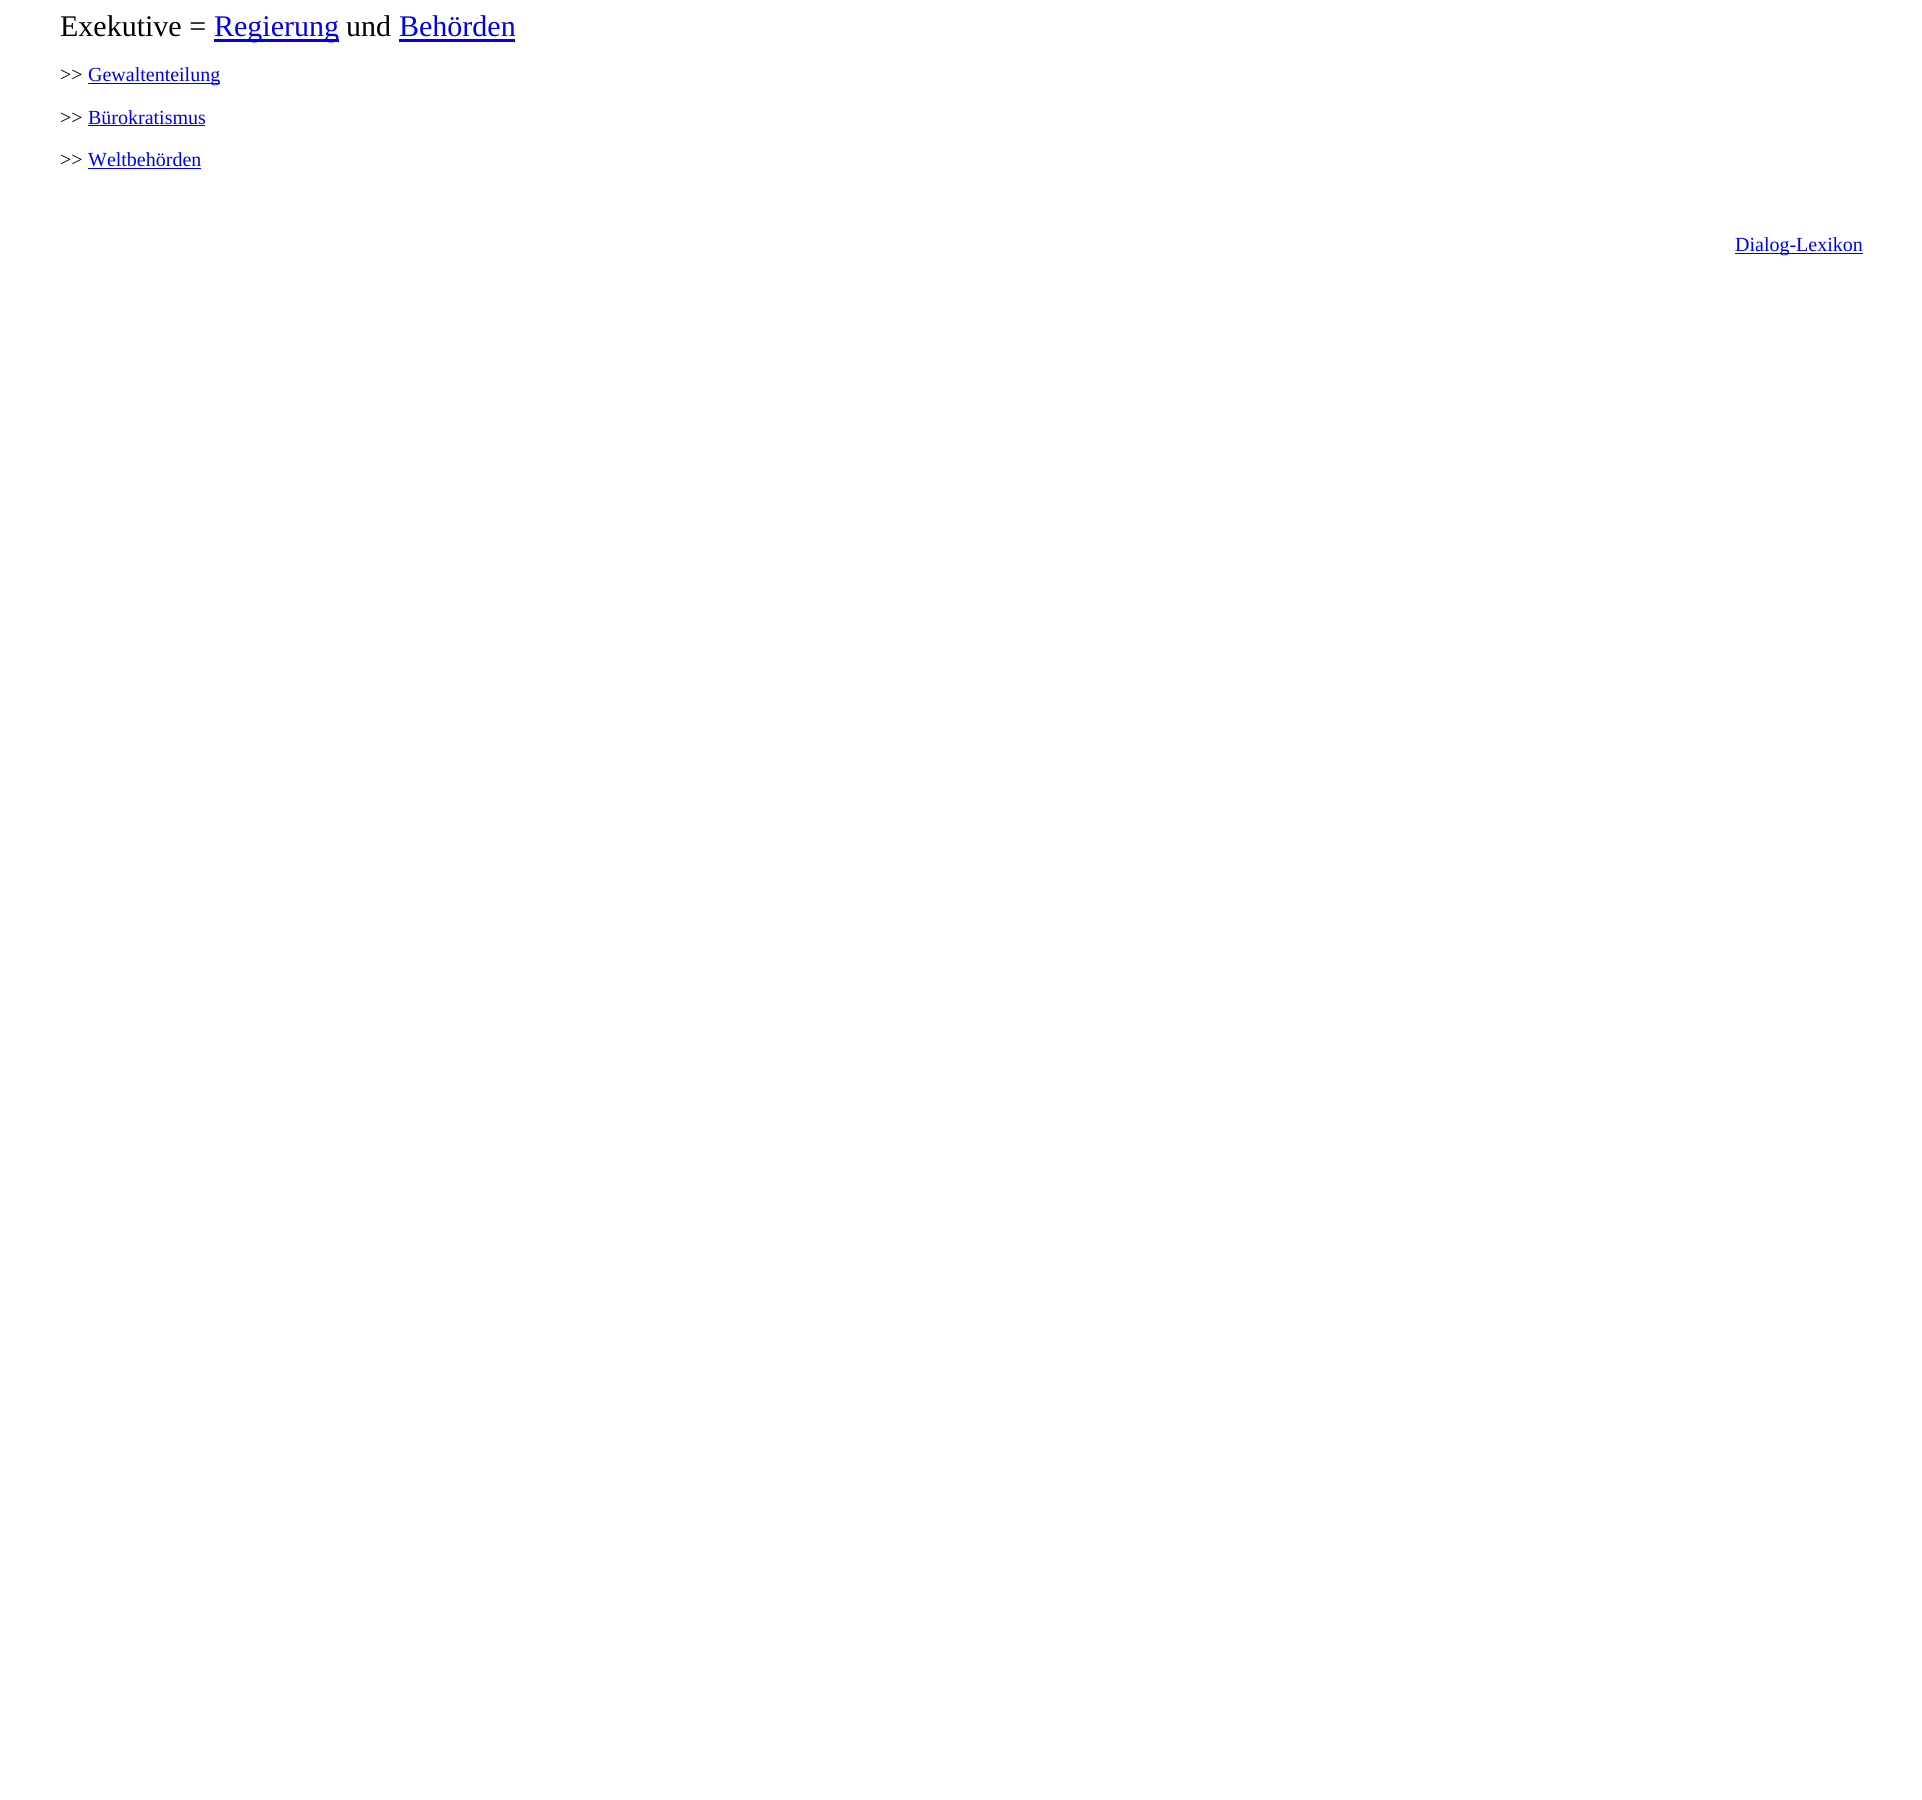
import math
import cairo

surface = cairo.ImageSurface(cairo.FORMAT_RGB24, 1922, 1800)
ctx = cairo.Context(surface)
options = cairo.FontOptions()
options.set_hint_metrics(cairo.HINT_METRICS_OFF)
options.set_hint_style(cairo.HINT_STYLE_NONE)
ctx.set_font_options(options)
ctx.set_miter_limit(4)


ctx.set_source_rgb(1, 1, 1)
ctx.paint()
ctx.select_font_face("Liberation Serif")
ctx.set_font_size(30)
ctx.set_source_rgb(0, 0, 0)
ctx.move_to(60, 36)
ctx.show_text("Exekutive =")
ctx.set_source_rgb(0, 0, 0.933)
ctx.rectangle(214, 39, 125, 3)
ctx.fill()
ctx.move_to(214, 36)
ctx.show_text("Regierung")
ctx.set_source_rgb(0, 0, 0)
ctx.move_to(346, 36)
ctx.show_text("und")
ctx.set_source_rgb(0, 0, 0.933)
ctx.move_to(399, 36)
ctx.show_text("Behörden")
ctx.rectangle(399, 39, 116, 3)
ctx.fill()
ctx.set_font_size(20)
ctx.set_source_rgb(0, 0, 0)
ctx.move_to(60, 81)
ctx.show_text(">>")
ctx.set_source_rgb(0, 0, 0.933)
ctx.rectangle(88, 83, 132, 1)
ctx.fill()
ctx.move_to(88, 81)
ctx.show_text("Gewaltenteilung")
ctx.set_source_rgb(0, 0, 0)
ctx.move_to(60, 124)
ctx.show_text(">>")
ctx.set_source_rgb(0, 0, 0.933)
ctx.move_to(88, 124)
ctx.show_text("Bürokratismus")
ctx.rectangle(88, 125, 117, 1)
ctx.fill()
ctx.set_source_rgb(0, 0, 0)
ctx.move_to(60, 166)
ctx.show_text(">>")
ctx.set_source_rgb(0, 0, 0.933)
ctx.move_to(88, 166)
ctx.show_text("Weltbehörden")
ctx.rectangle(88, 168, 113, 1)
ctx.fill()
ctx.rectangle(1735, 253, 128, 1)
ctx.fill()
ctx.move_to(1735, 251)
ctx.show_text("Dialog-Lexikon")
surface.write_to_png("page.png")
